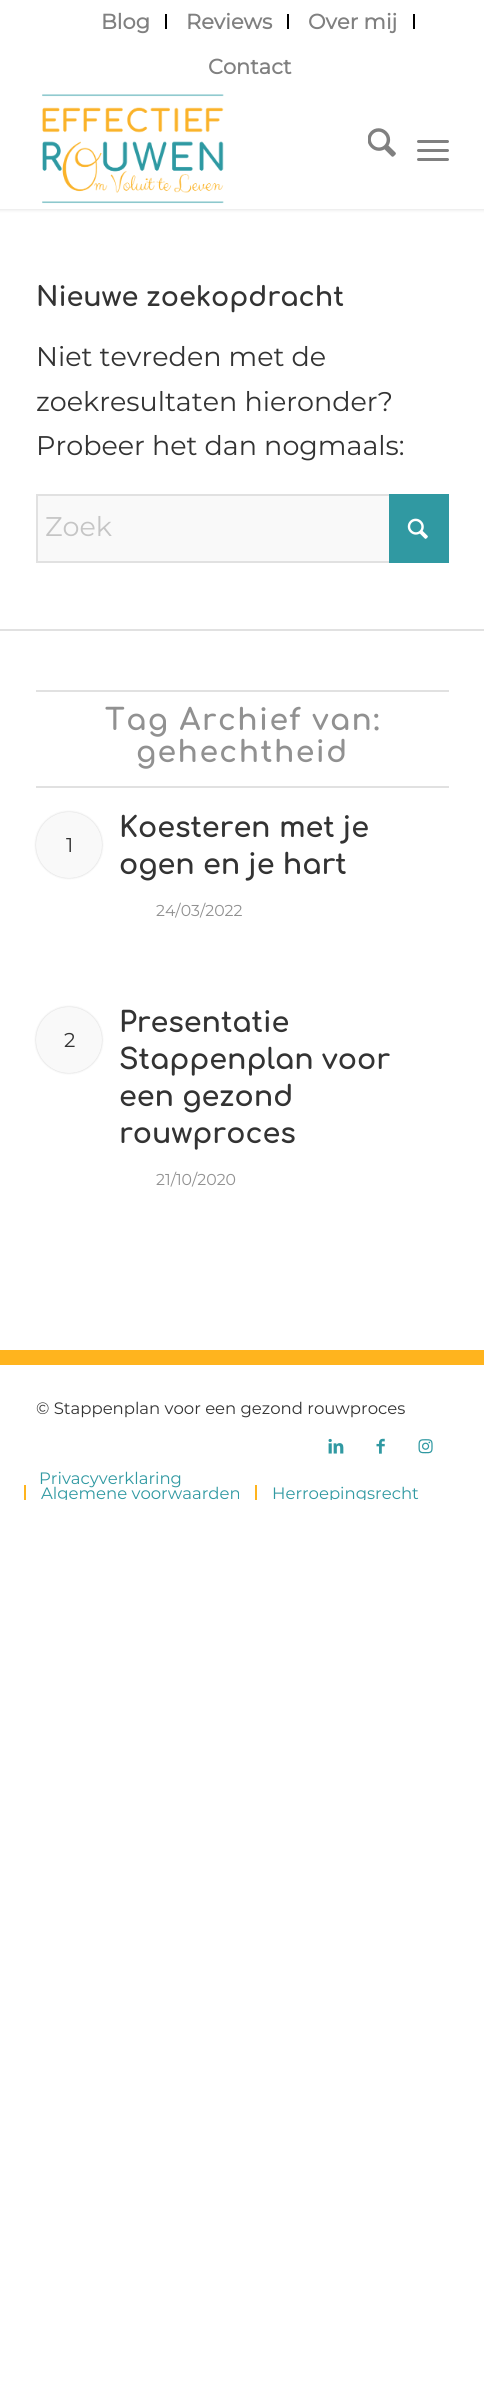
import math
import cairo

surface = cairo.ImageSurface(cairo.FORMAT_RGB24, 484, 2408)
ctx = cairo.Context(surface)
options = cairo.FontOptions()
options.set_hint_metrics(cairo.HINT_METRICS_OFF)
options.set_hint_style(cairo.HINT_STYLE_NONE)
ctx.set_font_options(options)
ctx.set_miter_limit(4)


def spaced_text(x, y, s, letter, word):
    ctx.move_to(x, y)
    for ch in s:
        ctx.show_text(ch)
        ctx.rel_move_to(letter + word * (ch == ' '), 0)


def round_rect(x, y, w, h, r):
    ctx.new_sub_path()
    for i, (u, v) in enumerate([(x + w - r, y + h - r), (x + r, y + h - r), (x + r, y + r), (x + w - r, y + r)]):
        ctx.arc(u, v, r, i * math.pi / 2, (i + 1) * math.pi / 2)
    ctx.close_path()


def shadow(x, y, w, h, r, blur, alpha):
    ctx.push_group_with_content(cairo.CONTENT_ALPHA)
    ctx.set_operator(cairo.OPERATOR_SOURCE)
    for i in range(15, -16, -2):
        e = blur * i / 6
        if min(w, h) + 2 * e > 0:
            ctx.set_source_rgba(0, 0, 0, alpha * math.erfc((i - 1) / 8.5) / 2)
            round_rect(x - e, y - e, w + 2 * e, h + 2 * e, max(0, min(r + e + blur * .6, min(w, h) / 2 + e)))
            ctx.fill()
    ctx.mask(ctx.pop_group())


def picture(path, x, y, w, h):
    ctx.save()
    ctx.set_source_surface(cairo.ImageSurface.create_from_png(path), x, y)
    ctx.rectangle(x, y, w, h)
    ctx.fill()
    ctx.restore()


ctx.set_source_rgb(1, 1, 1)
ctx.paint()
ctx.set_source_rgb(0, 0, 0)
shadow(-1, -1, 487, 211, 0, 1.5, 0.1)
ctx.set_source_rgb(1, 1, 1)
ctx.rectangle(0, 0, 484, 209)
ctx.fill()
ctx.set_source_rgb(0, 0, 0)
ctx.rectangle(165, 14, 2, 15)
ctx.fill()
ctx.select_font_face("Montserrat", cairo.FONT_SLANT_NORMAL, cairo.FONT_WEIGHT_BOLD)
ctx.set_font_size(21)
ctx.set_source_rgb(0.502, 0.502, 0.502)
ctx.move_to(101, 29)
ctx.show_text("Blog")
ctx.set_source_rgb(0, 0, 0)
ctx.rectangle(287, 14, 2, 15)
ctx.fill()
ctx.set_source_rgb(0.502, 0.502, 0.502)
ctx.move_to(186, 29)
ctx.show_text("Reviews")
ctx.set_source_rgb(0, 0, 0)
ctx.rectangle(413, 14, 2, 15)
ctx.fill()
ctx.set_source_rgb(0.502, 0.502, 0.502)
ctx.move_to(308, 29)
ctx.show_text("Over mij")
ctx.move_to(208, 74)
ctx.show_text("Contact")
picture("img1.png", 42, 94, 182, 110)
picture("img2.png", 368, 128, 28, 29)
round_rect(417, 149, 32, 3, 1.5)
ctx.fill()
round_rect(417, 140, 32, 3, 1.5)
ctx.fill()
round_rect(417, 158, 32, 3, 1.5)
ctx.fill()
ctx.select_font_face("Comfortaa", cairo.FONT_SLANT_NORMAL, cairo.FONT_WEIGHT_BOLD)
ctx.set_font_size(27)
ctx.set_source_rgb(0.2, 0.2, 0.2)
ctx.move_to(36, 306)
ctx.show_text("Nieuwe zoekopdracht")
ctx.select_font_face("Montserrat Thin")
ctx.move_to(36, 366)
ctx.show_text("Niet tevreden met de")
ctx.move_to(36, 411)
ctx.show_text("zoekresultaten hieronder?")
ctx.move_to(36, 455)
ctx.show_text("Probeer het dan nogmaals:")
ctx.set_source_rgb(0.976, 0.976, 0.976)
ctx.rectangle(38, 496, 351, 65)
ctx.fill()
ctx.rectangle(37, 495, 411, 67)
ctx.set_source_rgb(0.882, 0.882, 0.882)
ctx.stroke()
ctx.set_source_rgb(0.773, 0.773, 0.773)
ctx.move_to(45, 536)
ctx.show_text("Zoek")
ctx.set_source_rgb(0.188, 0.6, 0.635)
ctx.rectangle(389, 494, 60, 69)
ctx.fill()
picture("img3.png", 407, 518, 21, 21)
ctx.set_source_rgb(0.882, 0.882, 0.882)
ctx.rectangle(0, 629, 484, 2)
ctx.fill()
ctx.rectangle(36, 690, 413, 2)
ctx.fill()
ctx.rectangle(36, 786, 413, 2)
ctx.fill()
ctx.select_font_face("Comfortaa", cairo.FONT_SLANT_NORMAL, cairo.FONT_WEIGHT_BOLD)
ctx.set_font_size(29.75)
ctx.set_source_rgb(0.569, 0.569, 0.569)
spaced_text(105, 730, "Tag Archief van:", 1.5, 0)
spaced_text(136, 762, "gehechtheid", 1.5, 0)
ctx.set_source_rgb(0, 0, 0)
shadow(36, 812, 66, 66, 33, 1, 0.2)
ctx.set_source_rgb(0.976, 0.976, 0.976)
ctx.arc(69, 845, 33, 0, 2 * math.pi)
ctx.fill()
ctx.select_font_face("Montserrat Thin")
ctx.set_font_size(20)
ctx.set_source_rgb(0.2, 0.2, 0.2)
ctx.move_to(66, 852)
ctx.show_text("1")
ctx.select_font_face("Comfortaa", cairo.FONT_SLANT_NORMAL, cairo.FONT_WEIGHT_BOLD)
ctx.set_font_size(28.5)
ctx.move_to(119, 837)
ctx.show_text("Koesteren met je")
ctx.move_to(119, 874)
ctx.show_text("ogen en je hart")
ctx.select_font_face("Montserrat Thin")
ctx.set_font_size(15.75)
ctx.set_source_rgb(0.569, 0.569, 0.569)
ctx.move_to(156, 916)
ctx.show_text("24/03/2022")
ctx.set_source_rgb(0, 0, 0)
shadow(36, 1007, 66, 66, 33, 1, 0.2)
ctx.set_source_rgb(0.976, 0.976, 0.976)
ctx.arc(69, 1040, 33, 0, 2 * math.pi)
ctx.fill()
ctx.set_font_size(20)
ctx.set_source_rgb(0.2, 0.2, 0.2)
ctx.move_to(64, 1047)
ctx.show_text("2")
ctx.select_font_face("Comfortaa", cairo.FONT_SLANT_NORMAL, cairo.FONT_WEIGHT_BOLD)
ctx.set_font_size(28.5)
ctx.move_to(119, 1032)
ctx.show_text("Presentatie")
ctx.move_to(119, 1069)
ctx.show_text("Stappenplan voor")
ctx.move_to(119, 1106)
ctx.show_text("een gezond")
ctx.move_to(119, 1143)
ctx.show_text("rouwproces")
ctx.select_font_face("Montserrat Thin")
ctx.set_font_size(15.75)
ctx.set_source_rgb(0.569, 0.569, 0.569)
ctx.move_to(156, 1185)
ctx.show_text("21/10/2020")
ctx.set_source_rgb(1, 0.706, 0.118)
ctx.rectangle(0, 1350, 484, 15)
ctx.fill()
ctx.set_font_size(16.5)
ctx.set_source_rgb(0.2, 0.2, 0.2)
ctx.move_to(36, 1414)
ctx.show_text("© Stappenplan voor een gezond rouwproces")
picture("img4.png", 328, 1438, 16, 16)
picture("img5.png", 376, 1438, 9, 16)
picture("img6.png", 418, 1439, 15, 15)
ctx.set_source_rgb(0.188, 0.6, 0.635)
ctx.move_to(39, 1484)
ctx.show_text("Privacyverklaring")
ctx.set_source_rgb(1, 0.706, 0.118)
ctx.rectangle(24, 1485, 2, 15)
ctx.fill()
ctx.save()
ctx.rectangle(14, 1461, 412, 39)
ctx.clip()
ctx.set_source_rgb(0.188, 0.6, 0.635)
ctx.move_to(41, 1499)
ctx.show_text("Algemene voorwaarden")
ctx.restore()
ctx.rectangle(255, 1485, 2, 15)
ctx.fill()
ctx.save()
ctx.rectangle(14, 1461, 412, 39)
ctx.clip()
ctx.set_source_rgb(0.188, 0.6, 0.635)
ctx.move_to(272, 1499)
ctx.show_text("Herroepingsrecht")
ctx.restore()
surface.write_to_png("page.png")
